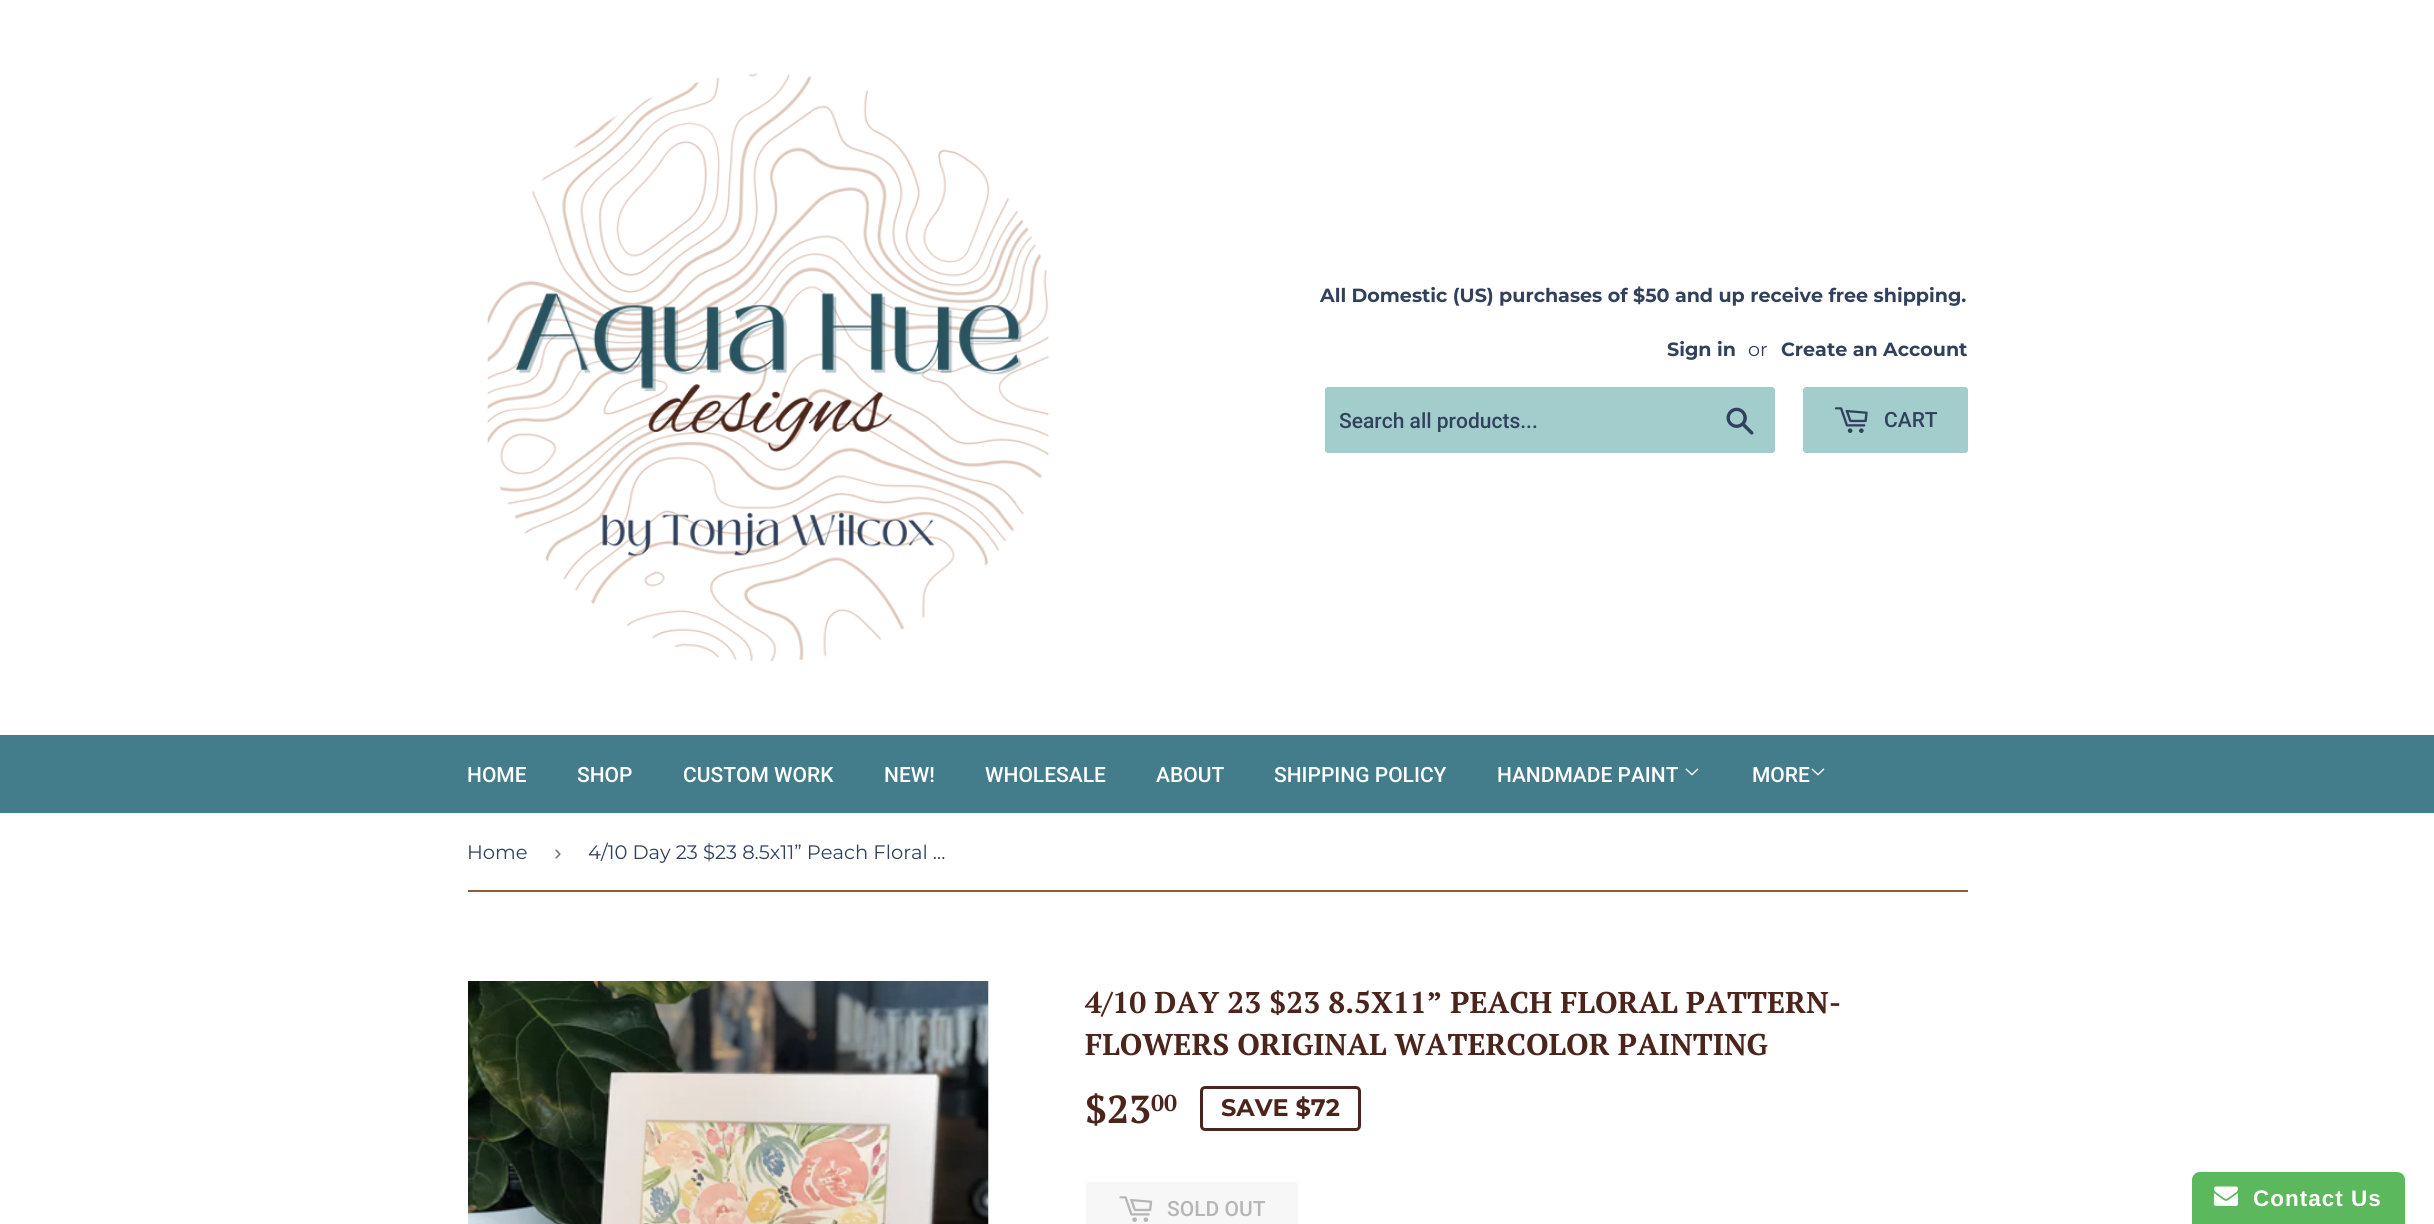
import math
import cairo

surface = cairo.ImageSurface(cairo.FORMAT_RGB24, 2434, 1224)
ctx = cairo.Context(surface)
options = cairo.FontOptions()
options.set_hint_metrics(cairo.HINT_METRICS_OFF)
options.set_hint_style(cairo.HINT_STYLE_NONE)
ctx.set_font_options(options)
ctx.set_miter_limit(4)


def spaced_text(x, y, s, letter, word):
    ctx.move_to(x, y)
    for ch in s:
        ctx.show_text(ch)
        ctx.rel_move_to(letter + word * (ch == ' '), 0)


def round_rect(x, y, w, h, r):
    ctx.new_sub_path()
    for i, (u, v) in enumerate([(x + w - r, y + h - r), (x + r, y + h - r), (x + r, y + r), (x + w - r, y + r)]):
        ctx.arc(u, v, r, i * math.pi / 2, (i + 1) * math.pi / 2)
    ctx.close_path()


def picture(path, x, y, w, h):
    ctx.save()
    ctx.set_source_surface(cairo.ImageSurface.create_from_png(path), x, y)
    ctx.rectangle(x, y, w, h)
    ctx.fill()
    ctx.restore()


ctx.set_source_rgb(1, 1, 1)
ctx.paint()
picture("img1.png", 487, 73, 563, 589)
ctx.select_font_face("Montserrat", cairo.FONT_SLANT_NORMAL, cairo.FONT_WEIGHT_BOLD)
ctx.set_font_size(19.1)
ctx.set_source_rgb(0.192, 0.255, 0.365)
ctx.move_to(1320, 302)
ctx.show_text("All Domestic (US) purchases of $50 and up receive free shipping.")
ctx.move_to(1667, 356)
ctx.show_text("Sign in")
ctx.select_font_face("Montserrat")
ctx.move_to(1748, 356)
ctx.show_text("or")
ctx.select_font_face("Montserrat", cairo.FONT_SLANT_NORMAL, cairo.FONT_WEIGHT_BOLD)
ctx.move_to(1781, 356)
ctx.show_text("Create an Account")
ctx.set_source_rgb(0.639, 0.804, 0.804)
round_rect(1325, 387, 450, 66, 3)
ctx.fill()
ctx.save()
ctx.rectangle(1340, 408, 361, 24)
ctx.clip()
ctx.select_font_face("Roboto Medium")
ctx.set_font_size(21)
ctx.set_source_rgb(0.192, 0.255, 0.365)
ctx.move_to(1339, 428)
ctx.show_text("Search all products...")
ctx.restore()
picture("img2.png", 1726, 407, 28, 28)
round_rect(1803, 387, 165, 66, 3)
ctx.fill()
picture("img3.png", 1834, 407, 34, 26)
ctx.select_font_face("Roboto Medium")
ctx.set_font_size(21)
ctx.set_source_rgb(0.192, 0.255, 0.365)
ctx.move_to(1884, 427)
ctx.show_text("CART")
ctx.set_source_rgb(0.263, 0.486, 0.545)
ctx.rectangle(0, 735, 2434, 78)
ctx.fill()
ctx.set_source_rgb(1, 1, 1)
ctx.move_to(467, 782)
ctx.show_text("HOME")
ctx.move_to(577, 782)
ctx.show_text("SHOP")
ctx.move_to(683, 782)
ctx.show_text("CUSTOM WORK")
ctx.move_to(884, 782)
ctx.show_text("NEW!")
ctx.move_to(985, 782)
ctx.show_text("WHOLESALE")
ctx.move_to(1156, 782)
ctx.show_text("ABOUT")
ctx.move_to(1274, 782)
ctx.show_text("SHIPPING POLICY")
ctx.move_to(1497, 782)
ctx.show_text("HANDMADE PAINT")
picture("img4.png", 1685, 768, 14, 8)
ctx.move_to(1752, 782)
ctx.show_text("MORE")
picture("img4.png", 1811, 768, 14, 8)
ctx.set_source_rgb(0.525, 0.376, 0.259)
ctx.rectangle(468, 890, 1500, 2)
ctx.fill()
ctx.select_font_face("Montserrat")
ctx.set_font_size(19.5)
ctx.set_source_rgb(0.192, 0.255, 0.365)
ctx.move_to(467, 859)
ctx.show_text("Home")
ctx.select_font_face("Liberation Sans")
ctx.set_font_size(22.5)
ctx.set_source_rgb(0.463, 0.463, 0.463)
ctx.move_to(554, 860)
ctx.show_text("›")
ctx.select_font_face("Montserrat")
ctx.set_font_size(19.5)
ctx.set_source_rgb(0.192, 0.255, 0.365)
ctx.move_to(588, 859)
ctx.show_text("4/10 Day 23 $23 8.5x11” Peach Floral …")
picture("img5.png", 468, 981, 521, 243)
ctx.select_font_face("PT Serif", cairo.FONT_SLANT_NORMAL, cairo.FONT_WEIGHT_BOLD)
ctx.set_font_size(30)
ctx.set_source_rgb(0.294, 0.145, 0.106)
ctx.move_to(1085, 1013)
ctx.show_text("4/10 DAY 23 $23 8.5X11” PEACH FLORAL PATTERN-")
ctx.move_to(1085, 1055)
ctx.show_text("FLOWERS ORIGINAL WATERCOLOR PAINTING")
ctx.set_font_size(39)
ctx.move_to(1085, 1123)
ctx.show_text("$23")
ctx.set_font_size(23)
ctx.move_to(1151, 1111)
ctx.show_text("00")
round_rect(1201.5, 1087.5, 158, 42, 3.5)
ctx.set_line_width(3)
ctx.stroke()
ctx.select_font_face("Montserrat", cairo.FONT_SLANT_NORMAL, cairo.FONT_WEIGHT_BOLD)
ctx.set_font_size(24)
ctx.move_to(1221, 1116)
ctx.show_text("SAVE $72")
ctx.set_source_rgb(0.965, 0.965, 0.965)
round_rect(1086, 1182, 212, 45, 3)
ctx.fill()
picture("img6.png", 1119, 1196, 34, 26)
ctx.select_font_face("Roboto Medium")
ctx.set_font_size(21)
ctx.set_source_rgb(0.714, 0.714, 0.714)
ctx.move_to(1167, 1216)
ctx.show_text("SOLD OUT")
ctx.set_source_rgb(0.361, 0.722, 0.361)
ctx.new_path()
ctx.move_to(2200, 1172)
ctx.line_to(2397, 1172)
ctx.curve_to(2401.5, 1172, 2405, 1175.5, 2405, 1180)
ctx.line_to(2405, 1224)
ctx.line_to(2192, 1224)
ctx.line_to(2192, 1180)
ctx.curve_to(2192, 1175.5, 2195.5, 1172, 2200, 1172)
ctx.close_path()
ctx.fill()
picture("img7.png", 2213, 1186, 25, 20)
ctx.select_font_face("Liberation Sans", cairo.FONT_SLANT_NORMAL, cairo.FONT_WEIGHT_BOLD)
ctx.set_font_size(22.5)
ctx.set_source_rgb(1, 1, 1)
spaced_text(2253, 1206, "Contact Us", 1, 0)
surface.write_to_png("page.png")
